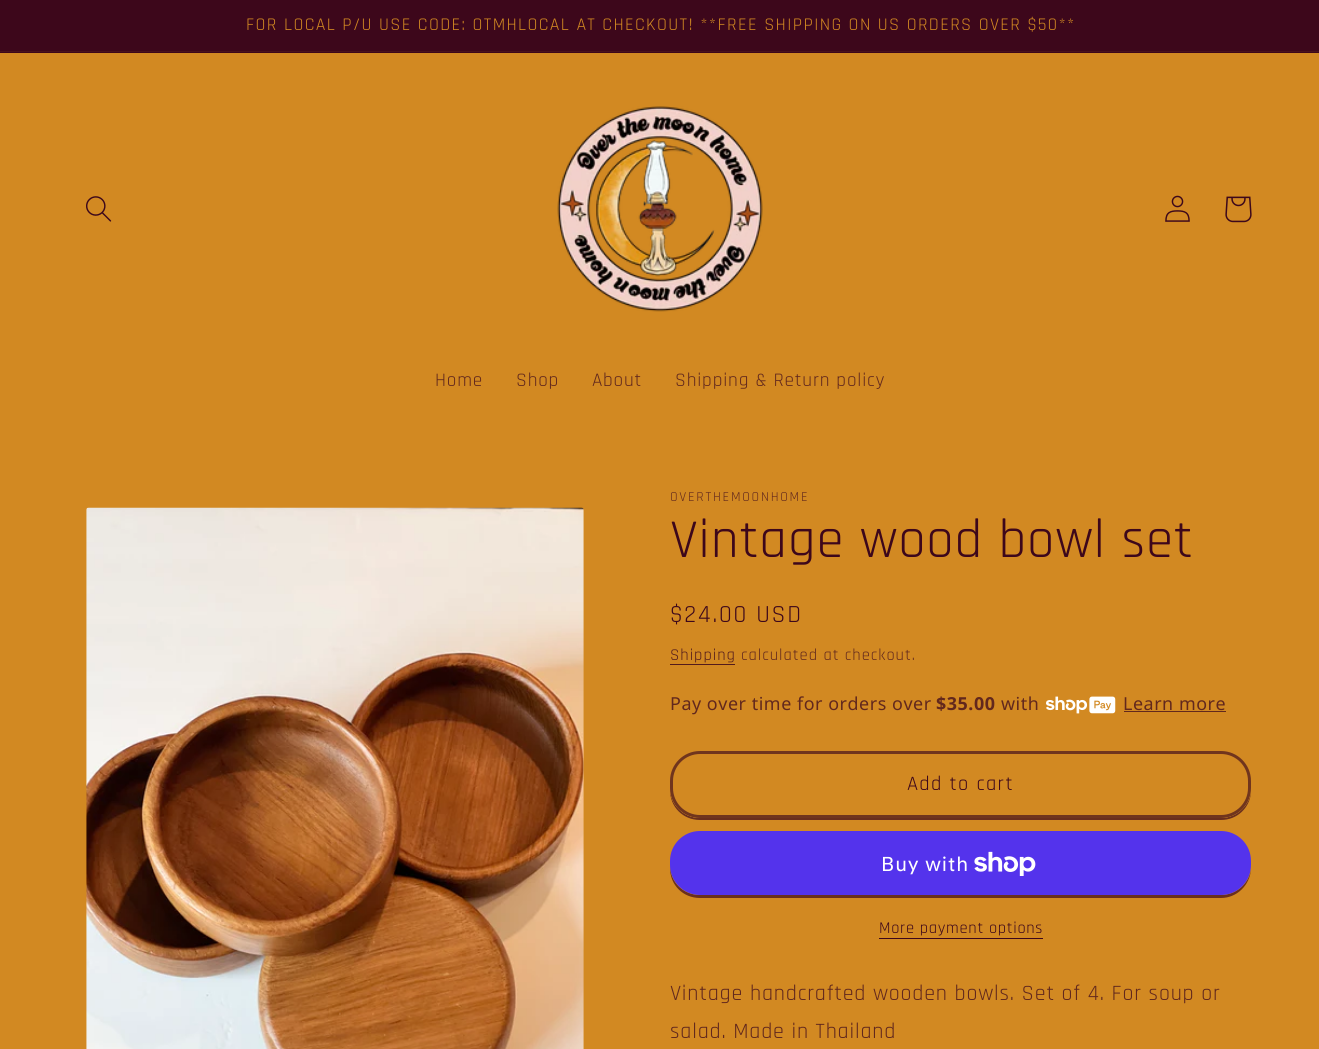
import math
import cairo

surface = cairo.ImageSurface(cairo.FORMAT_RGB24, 1319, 1049)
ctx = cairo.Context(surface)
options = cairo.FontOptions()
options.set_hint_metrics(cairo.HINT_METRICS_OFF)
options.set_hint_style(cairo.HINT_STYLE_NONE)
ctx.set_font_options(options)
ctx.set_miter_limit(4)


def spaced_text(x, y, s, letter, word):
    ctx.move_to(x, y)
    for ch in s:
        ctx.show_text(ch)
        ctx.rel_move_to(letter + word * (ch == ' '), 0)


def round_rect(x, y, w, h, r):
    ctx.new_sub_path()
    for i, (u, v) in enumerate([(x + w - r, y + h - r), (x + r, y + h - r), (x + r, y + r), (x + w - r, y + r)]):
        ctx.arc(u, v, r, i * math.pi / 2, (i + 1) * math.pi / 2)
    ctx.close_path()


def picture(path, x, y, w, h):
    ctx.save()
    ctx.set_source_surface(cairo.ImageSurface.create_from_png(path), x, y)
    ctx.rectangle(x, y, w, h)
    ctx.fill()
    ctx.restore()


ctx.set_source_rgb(0.824, 0.537, 0.133)
ctx.paint()
ctx.set_source_rgb(0.239, 0.031, 0.106)
ctx.rectangle(0, 0, 1319, 53)
ctx.fill()
ctx.set_source_rgb(0.286, 0.071, 0.11)
ctx.rectangle(0, 51, 1319, 1)
ctx.fill()
ctx.select_font_face("Rajdhani")
ctx.set_font_size(17.9)
ctx.set_source_rgb(0.824, 0.537, 0.133)
spaced_text(246, 30, "FOR LOCAL P/U USE CODE: OTMHLOCAL AT CHECKOUT! **FREE SHIPPING ON US ORDERS OVER $50**", 1.38, 0)
picture("img1.png", 86, 196, 26, 26)
picture("img2.png", 557, 106, 206, 206)
picture("img3.png", 1165, 195, 25, 27)
picture("img4.png", 1225, 196, 27, 27)
ctx.set_font_size(19.25)
ctx.set_source_rgb(0.384, 0.157, 0.114)
spaced_text(435, 386, "Home", 0.83, 0)
spaced_text(516, 386, "Shop", 0.83, 0)
spaced_text(592, 386, "About", 0.83, 0)
spaced_text(675, 386, "Shipping & Return policy", 0.83, 0)
picture("img5.png", 86, 507, 498, 542)
ctx.set_font_size(13.75)
spaced_text(670, 501, "OVERTHEMOONHOME", 1.75, 0)
ctx.set_font_size(55)
ctx.set_source_rgb(0.239, 0.031, 0.106)
spaced_text(670, 557, "Vintage wood bowl set", 0.83, 0)
ctx.set_font_size(24.75)
spaced_text(670, 622, "$24.00 USD", 1.75, 0)
ctx.set_font_size(16.5)
ctx.set_source_rgb(0.325, 0.106, 0.11)
spaced_text(670, 660, "Shipping", 1, 0)
ctx.rectangle(670, 664, 65, 1)
ctx.fill()
ctx.set_source_rgb(0.384, 0.157, 0.114)
spaced_text(741, 660, "calculated at checkout.", 1, 0)
ctx.select_font_face("Noto Sans")
ctx.set_font_size(17.9)
spaced_text(670, 710, "Pay over time for orders over", 0.55, 0)
ctx.select_font_face("Noto Sans", cairo.FONT_SLANT_NORMAL, cairo.FONT_WEIGHT_BOLD)
spaced_text(936, 710, "$35.00", 0.55, 0)
ctx.select_font_face("Noto Sans")
spaced_text(1001, 710, "with", 0.55, 0)
picture("img6.png", 1046, 696, 70, 18)
spaced_text(1123, 710, "Learn more", 0.55, 0)
ctx.rectangle(1124, 711, 102, 1)
ctx.fill()
ctx.set_source_rgb(0.416, 0.184, 0.114)
ctx.new_path()
ctx.move_to(670, 788)
ctx.line_to(670, 790)
ctx.curve_to(670, 807, 683, 820, 700, 820)
ctx.line_to(1221, 820)
ctx.curve_to(1237, 820, 1250, 808, 1251, 792)
ctx.curve_to(1249, 806, 1236, 818, 1221, 818)
ctx.line_to(700, 818)
ctx.curve_to(683, 818, 670, 804, 670, 788)
ctx.close_path()
ctx.fill()
ctx.set_source_rgb(0.824, 0.537, 0.133)
round_rect(670, 751, 581, 67, 30)
ctx.fill()
round_rect(671.5, 752.5, 578, 64, 28.5)
ctx.set_line_width(3)
ctx.stroke()
round_rect(671.5, 752.5, 578, 64, 28.5)
ctx.set_source_rgba(0.239, 0.031, 0.106, 0.65)
ctx.stroke()
ctx.select_font_face("Rajdhani")
ctx.set_font_size(20.5)
ctx.set_source_rgb(0.239, 0.031, 0.106)
spaced_text(907, 790, "Add to cart", 1.38, 0)
ctx.set_source_rgb(0.416, 0.184, 0.114)
ctx.new_path()
ctx.move_to(670, 865)
ctx.line_to(670, 868)
ctx.curve_to(670, 885, 683, 898, 700, 898)
ctx.line_to(1221, 898)
ctx.curve_to(1237, 898, 1250, 885, 1251, 869)
ctx.curve_to(1249, 884, 1236, 895, 1221, 895)
ctx.line_to(700, 895)
ctx.curve_to(683, 895, 670, 882, 670, 865)
ctx.close_path()
ctx.fill()
ctx.set_source_rgb(0.329, 0.2, 0.922)
round_rect(670, 831, 581, 64, 30)
ctx.fill()
ctx.select_font_face("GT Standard")
ctx.set_font_size(20)
ctx.set_source_rgb(1, 1, 1)
spaced_text(881, 871, "Buy with", 0.83, 0)
picture("img7.png", 974, 851, 62, 25)
ctx.select_font_face("Rajdhani")
ctx.set_font_size(16.5)
ctx.set_source_rgb(0.239, 0.031, 0.106)
spaced_text(879, 933, "More payment options", 0.7, 0)
ctx.rectangle(879, 938, 164, 1)
ctx.fill()
ctx.set_font_size(22)
ctx.set_source_rgb(0.384, 0.157, 0.114)
spaced_text(670, 1000, "Vintage handcrafted wooden bowls. Set of 4. For soup or", 0.83, 0)
spaced_text(670, 1038, "salad. Made in Thailand", 0.83, 0)
surface.write_to_png("page.png")
